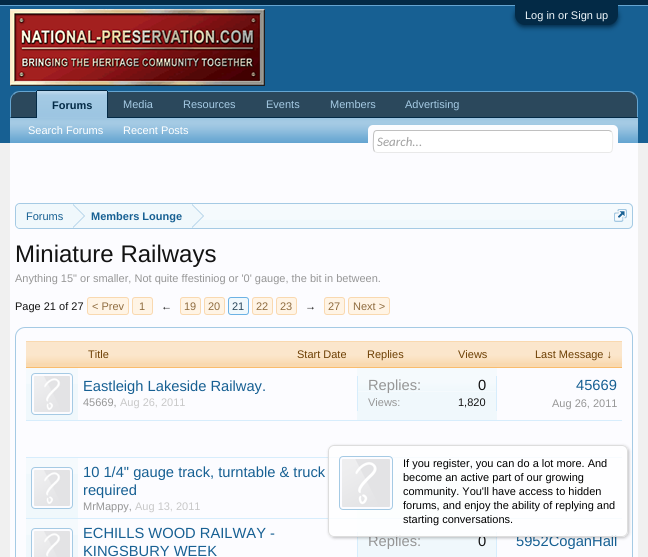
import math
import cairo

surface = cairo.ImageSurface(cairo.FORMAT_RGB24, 648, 557)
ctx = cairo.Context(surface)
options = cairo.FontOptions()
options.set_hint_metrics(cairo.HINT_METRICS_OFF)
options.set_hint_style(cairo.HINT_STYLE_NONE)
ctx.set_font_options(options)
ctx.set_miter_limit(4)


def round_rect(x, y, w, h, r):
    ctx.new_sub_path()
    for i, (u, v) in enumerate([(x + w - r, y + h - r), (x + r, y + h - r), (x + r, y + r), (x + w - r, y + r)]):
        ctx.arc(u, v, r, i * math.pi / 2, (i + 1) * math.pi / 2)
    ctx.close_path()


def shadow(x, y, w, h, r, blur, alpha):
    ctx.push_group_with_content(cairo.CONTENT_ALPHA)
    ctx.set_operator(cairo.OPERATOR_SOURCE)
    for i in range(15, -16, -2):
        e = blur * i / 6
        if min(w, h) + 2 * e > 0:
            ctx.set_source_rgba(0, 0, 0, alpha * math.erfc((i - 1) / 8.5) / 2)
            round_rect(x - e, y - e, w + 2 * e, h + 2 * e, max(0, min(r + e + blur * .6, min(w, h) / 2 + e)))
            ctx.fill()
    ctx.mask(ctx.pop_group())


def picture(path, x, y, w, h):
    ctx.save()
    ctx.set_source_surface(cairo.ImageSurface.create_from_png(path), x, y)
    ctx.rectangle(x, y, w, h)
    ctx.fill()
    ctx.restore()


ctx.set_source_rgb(0.941, 0.941, 0.941)
ctx.paint()
ctx.set_source_rgb(0.012, 0.165, 0.275)
ctx.rectangle(0, 0, 648, 5)
ctx.fill()
ctx.set_source_rgb(0.396, 0.647, 0.82)
ctx.rectangle(0, 5, 648, 1)
ctx.fill()
ctx.set_source_rgb(0.09, 0.376, 0.576)
ctx.rectangle(0, 6, 648, 137)
ctx.fill()
ctx.set_source_rgb(0.012, 0.165, 0.275)
shadow(515, 7, 103, 20, 10, 2.5, 1)
ctx.set_source_rgb(0.012, 0.165, 0.275)
ctx.new_path()
ctx.move_to(515, 5)
ctx.line_to(618, 5)
ctx.line_to(618, 15)
ctx.curve_to(618, 20.5, 613.5, 25, 608, 25)
ctx.line_to(525, 25)
ctx.curve_to(519.5, 25, 515, 20.5, 515, 15)
ctx.close_path()
ctx.fill()
ctx.select_font_face("Liberation Sans")
ctx.set_font_size(11)
ctx.set_source_rgb(0.941, 0.969, 0.988)
ctx.move_to(525, 19)
ctx.show_text("Log in or Sign up")
picture("img1.png", 10, 9, 255, 77)
ctx.set_source_rgb(0.169, 0.282, 0.361)
ctx.new_path()
ctx.move_to(20, 91)
ctx.line_to(628, 91)
ctx.curve_to(633.5, 91, 638, 95.5, 638, 101)
ctx.line_to(638, 118)
ctx.line_to(10, 118)
ctx.line_to(10, 101)
ctx.curve_to(10, 95.5, 14.5, 91, 20, 91)
ctx.close_path()
ctx.fill()
ctx.set_source_rgb(0.396, 0.647, 0.82)
ctx.new_path()
ctx.move_to(20, 91)
ctx.curve_to(17, 91, 14, 92, 13, 94)
ctx.line_to(14, 95)
ctx.curve_to(15, 93, 18, 92, 20, 92)
ctx.line_to(628, 92)
ctx.curve_to(630, 92, 633, 93, 634, 95)
ctx.line_to(635, 94)
ctx.curve_to(634, 92, 631, 91, 628, 91)
ctx.close_path()
ctx.fill()
ctx.new_path()
ctx.move_to(638, 118)
ctx.line_to(638, 101)
ctx.curve_to(638, 98, 637, 95.5, 635, 94)
ctx.line_to(634.5, 94.5)
ctx.curve_to(636, 96, 637, 98.5, 637, 101)
ctx.line_to(637, 117)
ctx.close_path()
ctx.fill()
ctx.set_source_rgb(0.012, 0.165, 0.275)
ctx.new_path()
ctx.move_to(638, 118)
ctx.line_to(637, 117)
ctx.line_to(11, 117)
ctx.line_to(10, 118)
ctx.close_path()
ctx.fill()
ctx.set_source_rgb(0.396, 0.647, 0.82)
ctx.new_path()
ctx.move_to(10, 118)
ctx.line_to(11, 117)
ctx.line_to(11, 101)
ctx.curve_to(11, 98.5, 12, 96, 13.5, 94.5)
ctx.line_to(13, 94)
ctx.curve_to(11, 95.5, 10, 98, 10, 101)
ctx.close_path()
ctx.fill()
ctx.set_source_rgb(0.647, 0.792, 0.894)
ctx.move_to(123, 108)
ctx.show_text("Media")
ctx.move_to(183, 108)
ctx.show_text("Resources")
ctx.move_to(266, 108)
ctx.show_text("Events")
ctx.move_to(330, 108)
ctx.show_text("Members")
ctx.move_to(405, 108)
ctx.show_text("Advertising")
ctx.set_source_rgb(0.396, 0.647, 0.82)
ctx.new_path()
ctx.move_to(38, 90)
ctx.line_to(106, 90)
ctx.curve_to(107, 90, 108, 91, 108, 92)
ctx.line_to(108, 118)
ctx.line_to(36, 118)
ctx.line_to(36, 92)
ctx.curve_to(36, 91, 37, 90, 38, 90)
ctx.close_path()
ctx.fill()
picture("img2.png", 37, 91, 70, 27)
ctx.set_source_rgb(0.012, 0.165, 0.275)
ctx.rectangle(37, 90, 70, 1)
ctx.fill()
ctx.rectangle(107, 91, 1, 27)
ctx.fill()
ctx.rectangle(36, 91, 1, 27)
ctx.fill()
ctx.select_font_face("Liberation Sans", cairo.FONT_SLANT_NORMAL, cairo.FONT_WEIGHT_BOLD)
ctx.move_to(52, 109)
ctx.show_text("Forums")
ctx.set_source_rgb(0.396, 0.647, 0.82)
ctx.rectangle(10, 118, 628, 25)
ctx.fill()
picture("img3.png", 10, 118, 628, 24)
ctx.select_font_face("Liberation Sans")
ctx.set_source_rgb(1, 1, 1)
ctx.move_to(28, 134)
ctx.show_text("Search Forums")
ctx.move_to(123, 134)
ctx.show_text("Recent Posts")
ctx.set_source_rgb(0.988, 0.988, 1)
ctx.rectangle(10, 143, 628, 414)
ctx.fill()
round_rect(368, 125, 250, 28, 5)
ctx.fill()
ctx.set_source_rgb(1, 1, 1)
round_rect(373, 130, 240, 23, 4)
ctx.fill()
ctx.new_path()
ctx.move_to(611.5, 131.5)
ctx.curve_to(613.5, 134, 612.5, 143.5, 612.5, 146.5)
ctx.curve_to(612.5, 149, 612.5, 152.5, 609, 152.5)
ctx.line_to(377, 152.5)
ctx.line_to(374.5, 151.5)
ctx.set_source_rgb(0.914, 0.914, 0.914)
ctx.set_line_width(1)
ctx.stroke()
ctx.new_path()
ctx.move_to(374.5, 151.5)
ctx.curve_to(372.5, 149, 373.5, 139.5, 373.5, 136.5)
ctx.curve_to(373.5, 134, 373.5, 130.5, 377, 130.5)
ctx.line_to(609, 130.5)
ctx.line_to(611.5, 131.5)
ctx.set_source_rgb(0.753, 0.753, 0.753)
ctx.stroke()
ctx.select_font_face("Carlito", cairo.FONT_SLANT_ITALIC)
ctx.set_font_size(13)
ctx.set_source_rgb(0.627, 0.627, 0.627)
ctx.move_to(377, 146)
ctx.show_text("Search...")
ctx.set_source_rgb(0.941, 0.969, 0.988)
round_rect(15, 203, 618, 26, 5)
ctx.fill()
picture("img4.png", 15, 204, 618, 16)
round_rect(15.5, 203.5, 617, 25, 4.5)
ctx.set_source_rgb(0.647, 0.792, 0.894)
ctx.stroke()
ctx.save()
round_rect(16, 204, 616, 24, 4)
ctx.clip()
ctx.set_source_rgb(0.941, 0.969, 0.988)
ctx.new_path()
ctx.move_to(21, 204)
ctx.line_to(73, 204)
ctx.line_to(73, 229)
ctx.line_to(21, 229)
ctx.curve_to(18, 229, 16, 227, 16, 224)
ctx.line_to(16, 209)
ctx.curve_to(16, 206, 18, 204, 21, 204)
ctx.close_path()
ctx.fill()
ctx.restore()
ctx.select_font_face("Liberation Sans")
ctx.set_font_size(11)
ctx.set_source_rgb(0.09, 0.376, 0.576)
ctx.move_to(26, 220)
ctx.show_text("Forums")
ctx.set_source_rgb(0.941, 0.969, 0.988)
ctx.rectangle(73, 204, 119, 16)
ctx.fill()
ctx.set_source_rgb(0.647, 0.792, 0.894)
ctx.new_path()
ctx.move_to(73, 228)
ctx.line_to(73, 204)
ctx.line_to(85, 216)
ctx.close_path()
ctx.fill()
ctx.set_source_rgb(0.941, 0.969, 0.988)
ctx.new_path()
ctx.move_to(72, 228)
ctx.line_to(72, 204)
ctx.line_to(84, 216)
ctx.close_path()
ctx.fill()
ctx.select_font_face("Liberation Sans", cairo.FONT_SLANT_NORMAL, cairo.FONT_WEIGHT_BOLD)
ctx.set_source_rgb(0.09, 0.376, 0.576)
ctx.move_to(91, 220)
ctx.show_text("Members Lounge")
ctx.set_source_rgb(0.647, 0.792, 0.894)
ctx.new_path()
ctx.move_to(192, 228)
ctx.line_to(192, 204)
ctx.line_to(204, 216)
ctx.close_path()
ctx.fill()
ctx.set_source_rgb(0.941, 0.969, 0.988)
ctx.new_path()
ctx.move_to(191, 228)
ctx.line_to(191, 204)
ctx.line_to(203, 216)
ctx.close_path()
ctx.fill()
picture("img5.png", 614, 209, 13, 13)
ctx.select_font_face("Liberation Sans")
ctx.set_font_size(24)
ctx.set_source_rgb(0.078, 0.078, 0.078)
ctx.move_to(15, 262)
ctx.show_text("Miniature Railways")
ctx.set_font_size(11)
ctx.set_source_rgb(0.588, 0.588, 0.588)
ctx.move_to(15, 282)
ctx.show_text("Anything 15\" or smaller, Not quite ffestiniog or '0' gauge, the bit in between.")
ctx.set_source_rgb(0.078, 0.078, 0.078)
ctx.move_to(15, 310)
ctx.show_text("Page 21 of 27")
ctx.set_source_rgb(1, 0.957, 0.898)
round_rect(87.5, 297.5, 41, 17, 2.5)
ctx.fill_preserve()
ctx.set_source_rgb(0.976, 0.851, 0.69)
ctx.stroke()
ctx.set_source_rgb(0.561, 0.424, 0.247)
ctx.move_to(92, 310)
ctx.show_text("< Prev")
ctx.set_source_rgb(1, 0.957, 0.898)
round_rect(132.5, 297.5, 20, 17, 2.5)
ctx.fill_preserve()
ctx.set_source_rgb(0.976, 0.851, 0.69)
ctx.stroke()
ctx.set_source_rgb(0.561, 0.424, 0.247)
ctx.move_to(139, 310)
ctx.show_text("1")
ctx.set_source_rgb(0.078, 0.078, 0.078)
ctx.move_to(161, 310)
ctx.show_text("←")
ctx.set_source_rgb(1, 0.957, 0.898)
round_rect(180.5, 297.5, 20, 17, 2.5)
ctx.fill_preserve()
ctx.set_source_rgb(0.976, 0.851, 0.69)
ctx.stroke()
ctx.set_source_rgb(0.561, 0.424, 0.247)
ctx.move_to(184, 310)
ctx.show_text("19")
ctx.set_source_rgb(1, 0.957, 0.898)
round_rect(204.5, 297.5, 20, 17, 2.5)
ctx.fill_preserve()
ctx.set_source_rgb(0.976, 0.851, 0.69)
ctx.stroke()
ctx.set_source_rgb(0.561, 0.424, 0.247)
ctx.move_to(208, 310)
ctx.show_text("20")
ctx.set_source_rgb(0.941, 0.969, 0.988)
round_rect(228.5, 297.5, 20, 17, 2.5)
ctx.fill_preserve()
ctx.set_source_rgb(0.424, 0.698, 0.894)
ctx.stroke()
ctx.set_source_rgb(0.169, 0.282, 0.361)
ctx.move_to(232, 310)
ctx.show_text("21")
ctx.set_source_rgb(1, 0.957, 0.898)
round_rect(252.5, 297.5, 20, 17, 2.5)
ctx.fill_preserve()
ctx.set_source_rgb(0.976, 0.851, 0.69)
ctx.stroke()
ctx.set_source_rgb(0.561, 0.424, 0.247)
ctx.move_to(256, 310)
ctx.show_text("22")
ctx.set_source_rgb(1, 0.957, 0.898)
round_rect(276.5, 297.5, 20, 17, 2.5)
ctx.fill_preserve()
ctx.set_source_rgb(0.976, 0.851, 0.69)
ctx.stroke()
ctx.set_source_rgb(0.561, 0.424, 0.247)
ctx.move_to(280, 310)
ctx.show_text("23")
ctx.set_source_rgb(0.078, 0.078, 0.078)
ctx.move_to(305, 310)
ctx.show_text("→")
ctx.set_source_rgb(1, 0.957, 0.898)
round_rect(324.5, 297.5, 20, 17, 2.5)
ctx.fill_preserve()
ctx.set_source_rgb(0.976, 0.851, 0.69)
ctx.stroke()
ctx.set_source_rgb(0.561, 0.424, 0.247)
ctx.move_to(328, 310)
ctx.show_text("27")
ctx.set_source_rgb(1, 0.957, 0.898)
round_rect(348.5, 297.5, 41, 17, 2.5)
ctx.fill_preserve()
ctx.set_source_rgb(0.976, 0.851, 0.69)
ctx.stroke()
ctx.set_source_rgb(0.561, 0.424, 0.247)
ctx.move_to(353, 310)
ctx.show_text("Next >")
round_rect(15.5, 327.5, 617, 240, 9.5)
ctx.set_source_rgb(0.647, 0.792, 0.894)
ctx.stroke()
ctx.set_source_rgb(0.976, 0.851, 0.69)
ctx.rectangle(26, 341, 596, 26)
ctx.fill()
picture("img6.png", 26, 342, 596, 21)
ctx.set_source_rgb(0.976, 0.737, 0.427)
ctx.rectangle(26, 367, 596, 1)
ctx.fill()
ctx.set_source_rgb(0.427, 0.247, 0.012)
ctx.move_to(88, 358)
ctx.show_text("Title")
ctx.move_to(297, 358)
ctx.show_text("Start Date")
ctx.move_to(367, 358)
ctx.show_text("Replies")
ctx.move_to(458, 358)
ctx.show_text("Views")
ctx.move_to(535, 358)
ctx.show_text("Last Message ↓")
ctx.set_source_rgb(0.843, 0.929, 0.988)
ctx.rectangle(26, 420, 596, 1)
ctx.fill()
ctx.set_source_rgb(0.941, 0.969, 0.988)
ctx.rectangle(26, 368, 52, 52)
ctx.fill()
picture("img7.png", 26, 368, 52, 16)
ctx.set_source_rgb(0.988, 0.988, 1)
round_rect(31.5, 373.5, 41, 41, 3.5)
ctx.fill_preserve()
ctx.set_source_rgb(0.647, 0.792, 0.894)
ctx.stroke()
picture("img8.png", 34, 376, 36, 36)
ctx.set_font_size(14.7)
ctx.set_source_rgb(0.09, 0.376, 0.576)
ctx.move_to(83, 391)
ctx.show_text("Eastleigh Lakeside Railway.")
ctx.set_font_size(11)
ctx.set_source_rgb(0.588, 0.588, 0.588)
ctx.move_to(83, 406)
ctx.show_text("45669,")
ctx.set_source_rgb(0.784, 0.784, 0.784)
ctx.move_to(120, 406)
ctx.show_text("Aug 26, 2011")
ctx.set_source_rgb(0.941, 0.969, 0.988)
ctx.rectangle(357, 368, 140, 52)
ctx.fill()
picture("img9.png", 357, 368, 140, 24)
ctx.set_source_rgb(0.843, 0.929, 0.988)
ctx.rectangle(496, 376, 1, 35)
ctx.fill()
ctx.rectangle(357, 376, 1, 35)
ctx.fill()
ctx.set_font_size(14.7)
ctx.set_source_rgb(0.588, 0.588, 0.588)
ctx.move_to(368, 390)
ctx.show_text("Replies:")
ctx.set_source_rgb(0.078, 0.078, 0.078)
ctx.move_to(478, 390)
ctx.show_text("0")
ctx.set_font_size(11)
ctx.set_source_rgb(0.588, 0.588, 0.588)
ctx.move_to(368, 406)
ctx.show_text("Views:")
ctx.set_source_rgb(0.078, 0.078, 0.078)
ctx.move_to(458, 406)
ctx.show_text("1,820")
ctx.set_font_size(14.7)
ctx.set_source_rgb(0.09, 0.376, 0.576)
ctx.move_to(576, 390)
ctx.show_text("45669")
ctx.set_font_size(11)
ctx.set_source_rgb(0.588, 0.588, 0.588)
ctx.move_to(552, 407)
ctx.show_text("Aug 26, 2011")
ctx.set_source_rgb(0.843, 0.929, 0.988)
ctx.rectangle(26, 457, 596, 1)
ctx.fill()
ctx.rectangle(26, 518, 596, 1)
ctx.fill()
ctx.set_source_rgb(0.941, 0.969, 0.988)
ctx.rectangle(26, 458, 52, 60)
ctx.fill()
picture("img10.png", 26, 458, 52, 16)
ctx.set_source_rgb(0.988, 0.988, 1)
round_rect(31.5, 467.5, 41, 41, 3.5)
ctx.fill_preserve()
ctx.set_source_rgb(0.647, 0.792, 0.894)
ctx.stroke()
picture("img8.png", 34, 470, 36, 36)
ctx.set_font_size(14.7)
ctx.set_source_rgb(0.09, 0.376, 0.576)
ctx.move_to(83, 477)
ctx.show_text("10 1/4\" gauge track, turntable & truck")
ctx.move_to(83, 495)
ctx.show_text("required")
ctx.set_font_size(11)
ctx.set_source_rgb(0.588, 0.588, 0.588)
ctx.move_to(83, 510)
ctx.show_text("MrMappy,")
ctx.set_source_rgb(0.784, 0.784, 0.784)
ctx.move_to(135, 510)
ctx.show_text("Aug 13, 2011")
ctx.set_source_rgb(0.941, 0.969, 0.988)
ctx.rectangle(357, 458, 140, 60)
ctx.fill()
picture("img11.png", 392, 458, 105, 16)
ctx.set_source_rgb(0.843, 0.929, 0.988)
ctx.rectangle(496, 471, 1, 34)
ctx.fill()
ctx.set_source_rgb(0.941, 0.969, 0.988)
ctx.rectangle(26, 519, 52, 38)
ctx.fill()
picture("img10.png", 26, 519, 52, 16)
ctx.set_source_rgb(0.988, 0.988, 1)
round_rect(31.5, 528.5, 41, 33, 3.5)
ctx.fill_preserve()
ctx.set_source_rgb(0.647, 0.792, 0.894)
ctx.stroke()
picture("img12.png", 34, 531, 36, 26)
ctx.set_font_size(14.7)
ctx.set_source_rgb(0.09, 0.376, 0.576)
ctx.move_to(83, 538)
ctx.show_text("ECHILLS WOOD RAILWAY -")
ctx.move_to(83, 556)
ctx.show_text("KINGSBURY WEEK")
ctx.set_source_rgb(0.941, 0.969, 0.988)
ctx.rectangle(357, 519, 140, 38)
ctx.fill()
picture("img13.png", 357, 519, 140, 16)
ctx.set_source_rgb(0.843, 0.929, 0.988)
ctx.rectangle(496, 532, 1, 25)
ctx.fill()
ctx.rectangle(357, 532, 1, 25)
ctx.fill()
ctx.set_source_rgb(0.588, 0.588, 0.588)
ctx.move_to(368, 546)
ctx.show_text("Replies:")
ctx.set_source_rgb(0.078, 0.078, 0.078)
ctx.move_to(478, 546)
ctx.show_text("0")
ctx.set_source_rgb(0.09, 0.376, 0.576)
ctx.move_to(516, 546)
ctx.show_text("5952CoganHall")
ctx.save()
ctx.set_fill_rule(cairo.FILL_RULE_EVEN_ODD)
ctx.new_path()
ctx.move_to(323, 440)
ctx.line_to(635, 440)
ctx.line_to(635, 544)
ctx.line_to(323, 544)
ctx.close_path()
ctx.move_to(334, 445)
ctx.line_to(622, 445)
ctx.curve_to(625.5, 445, 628, 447.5, 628, 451)
ctx.line_to(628, 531)
ctx.curve_to(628, 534.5, 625.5, 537, 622, 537)
ctx.line_to(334, 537)
ctx.curve_to(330.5, 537, 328, 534.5, 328, 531)
ctx.line_to(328, 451)
ctx.curve_to(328, 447.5, 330.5, 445, 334, 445)
ctx.close_path()
ctx.clip()
ctx.set_source_rgb(0, 0, 0)
shadow(329, 446, 300, 92, 6, 1.5, 0.25)
ctx.restore()
ctx.set_source_rgba(1, 1, 1, 0.8)
round_rect(328.5, 445.5, 299, 91, 5.5)
ctx.fill_preserve()
ctx.set_source_rgb(0.867, 0.867, 0.867)
ctx.stroke()
ctx.set_source_rgb(0.988, 0.988, 1)
round_rect(339.5, 456.5, 53, 53, 3.5)
ctx.fill_preserve()
ctx.set_source_rgb(0.647, 0.792, 0.894)
ctx.stroke()
picture("img14.png", 342, 459, 48, 48)
ctx.set_font_size(11)
ctx.set_source_rgb(0, 0, 0)
ctx.move_to(403, 467)
ctx.show_text("If you register, you can do a lot more. And")
ctx.move_to(403, 481)
ctx.show_text("become an active part of our growing")
ctx.move_to(403, 495)
ctx.show_text("community. You'll have access to hidden")
ctx.move_to(403, 509)
ctx.show_text("forums, and enjoy the ability of replying and")
ctx.move_to(403, 523)
ctx.show_text("starting conversations.")
surface.write_to_png("page.png")
